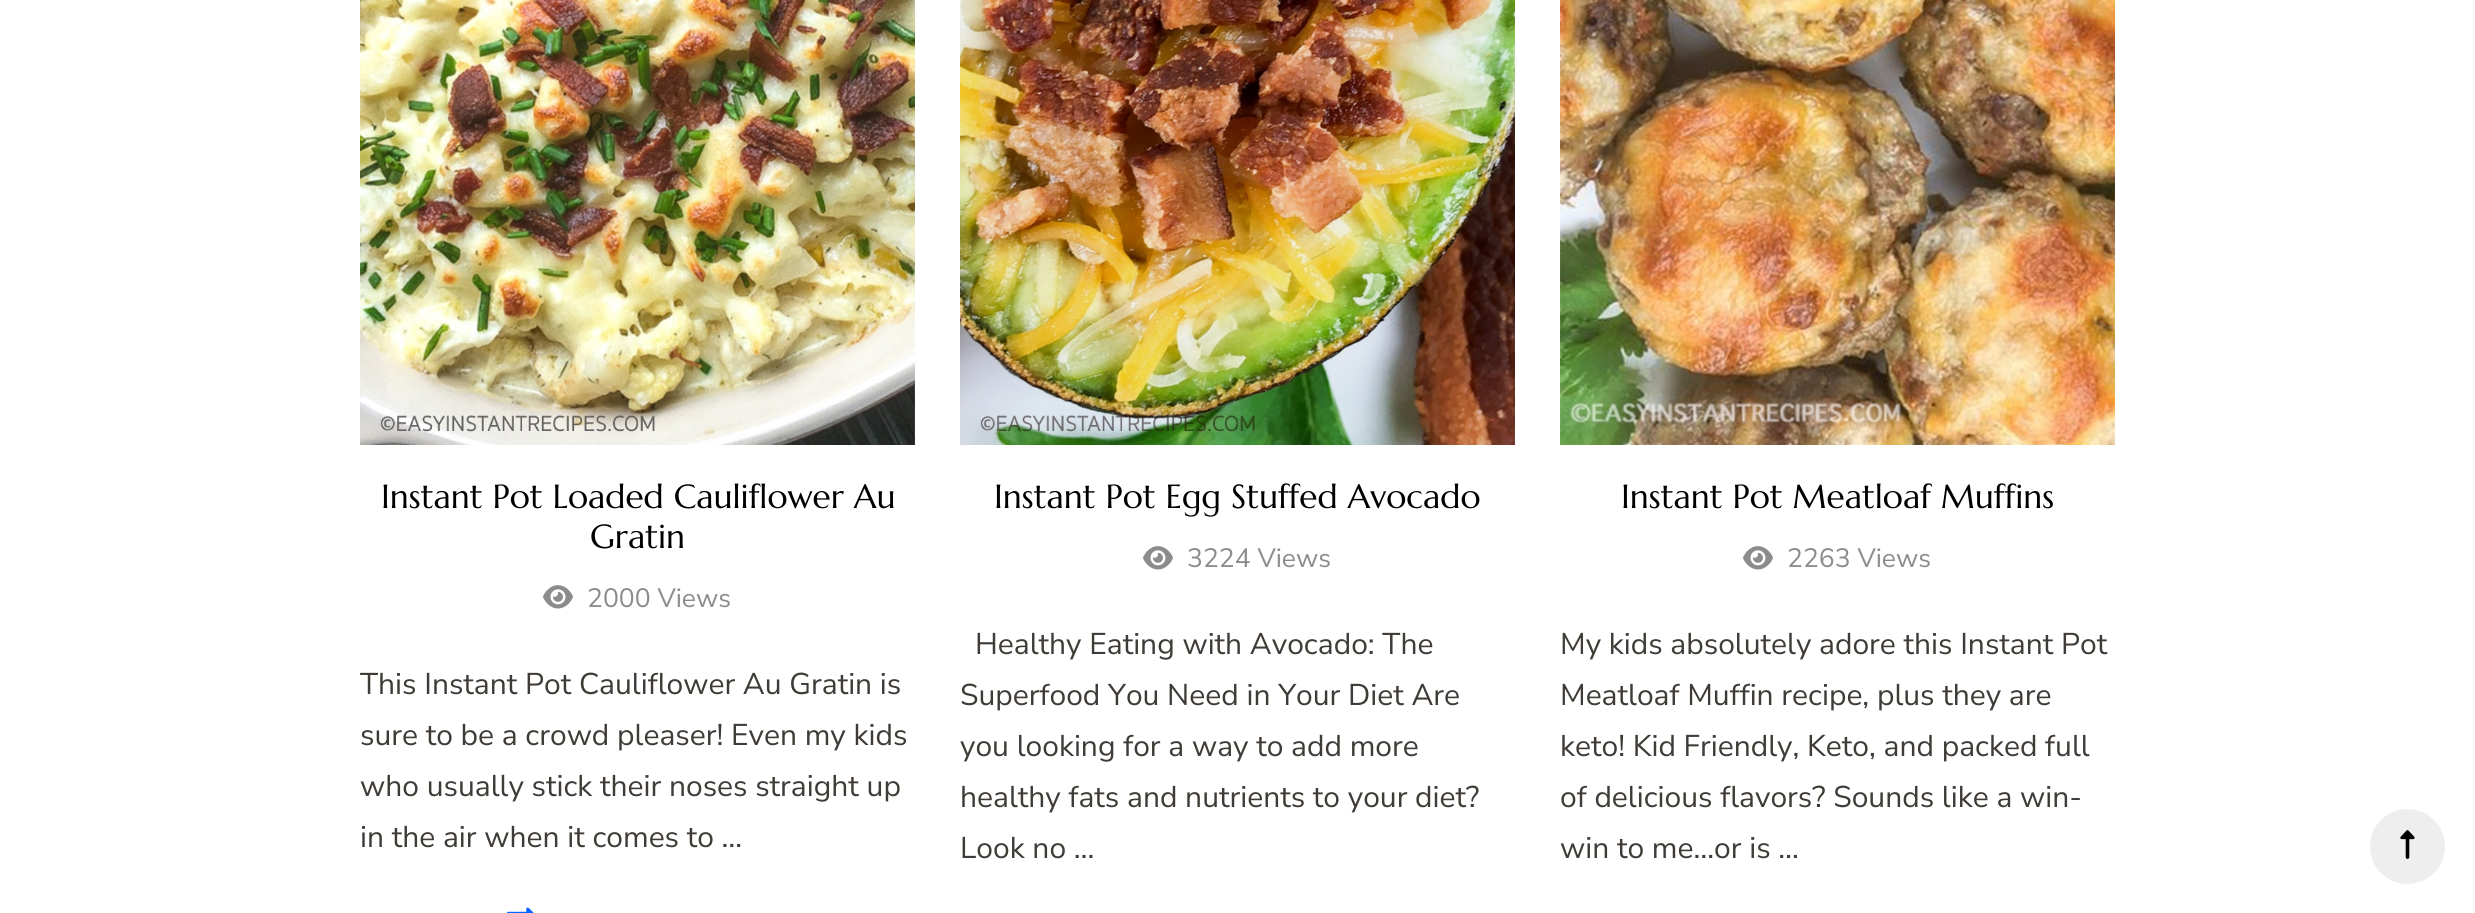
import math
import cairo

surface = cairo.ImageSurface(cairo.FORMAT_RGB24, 2475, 913)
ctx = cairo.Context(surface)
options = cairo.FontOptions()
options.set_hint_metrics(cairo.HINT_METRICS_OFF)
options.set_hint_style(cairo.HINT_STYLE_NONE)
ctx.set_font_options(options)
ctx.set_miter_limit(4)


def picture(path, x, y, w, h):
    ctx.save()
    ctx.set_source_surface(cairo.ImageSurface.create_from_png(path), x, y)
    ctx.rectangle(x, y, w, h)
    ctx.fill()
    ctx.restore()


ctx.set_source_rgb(1, 1, 1)
ctx.paint()
picture("img1.png", 360, 0, 555, 445)
ctx.select_font_face("Marcellus")
ctx.set_font_size(33.4)
ctx.set_source_rgb(0, 0, 0)
ctx.move_to(381, 508)
ctx.show_text("Instant Pot Loaded Cauliflower Au")
ctx.move_to(590, 548)
ctx.show_text("Gratin")
picture("img2.png", 543, 585, 30, 24)
ctx.select_font_face("Nunito Sans")
ctx.set_font_size(26.5)
ctx.set_source_rgb(0.549, 0.549, 0.549)
ctx.move_to(587, 607)
ctx.show_text("2000 Views")
ctx.set_font_size(30)
ctx.set_source_rgb(0.247, 0.231, 0.212)
ctx.move_to(360, 694)
ctx.show_text("This Instant Pot Cauliflower Au Gratin is")
ctx.move_to(360, 745)
ctx.show_text("sure to be a crowd pleaser! Even my kids")
ctx.move_to(360, 796)
ctx.show_text("who usually stick their noses straight up")
ctx.move_to(360, 847)
ctx.show_text("in the air when it comes to …")
picture("img3.png", 507, 907, 27, 6)
picture("img4.png", 960, 0, 555, 445)
ctx.select_font_face("Marcellus")
ctx.set_font_size(33.4)
ctx.set_source_rgb(0, 0, 0)
ctx.move_to(994, 508)
ctx.show_text("Instant Pot Egg Stuffed Avocado")
picture("img2.png", 1143, 546, 30, 24)
ctx.select_font_face("Nunito Sans")
ctx.set_font_size(26.5)
ctx.set_source_rgb(0.549, 0.549, 0.549)
ctx.move_to(1187, 567)
ctx.show_text("3224 Views")
ctx.set_font_size(30)
ctx.set_source_rgb(0.247, 0.231, 0.212)
ctx.move_to(975, 654)
ctx.show_text("Healthy Eating with Avocado: The")
ctx.move_to(960, 705)
ctx.show_text("Superfood You Need in Your Diet Are")
ctx.move_to(960, 756)
ctx.show_text("you looking for a way to add more")
ctx.move_to(960, 807)
ctx.show_text("healthy fats and nutrients to your diet?")
ctx.move_to(960, 858)
ctx.show_text("Look no …")
picture("img5.png", 1560, 0, 555, 445)
ctx.select_font_face("Marcellus")
ctx.set_font_size(33.4)
ctx.set_source_rgb(0, 0, 0)
ctx.move_to(1621, 508)
ctx.show_text("Instant Pot Meatloaf Muffins")
picture("img2.png", 1743, 546, 30, 24)
ctx.select_font_face("Nunito Sans")
ctx.set_font_size(26.5)
ctx.set_source_rgb(0.549, 0.549, 0.549)
ctx.move_to(1787, 567)
ctx.show_text("2263 Views")
ctx.set_font_size(30)
ctx.set_source_rgb(0.247, 0.231, 0.212)
ctx.move_to(1560, 654)
ctx.show_text("My kids absolutely adore this Instant Pot")
ctx.move_to(1560, 705)
ctx.show_text("Meatloaf Muffin recipe, plus they are")
ctx.move_to(1560, 756)
ctx.show_text("keto! Kid Friendly, Keto, and packed full")
ctx.move_to(1560, 807)
ctx.show_text("of delicious flavors? Sounds like a win-")
ctx.move_to(1560, 858)
ctx.show_text("win to me…or is …")
ctx.set_source_rgb(0.933, 0.933, 0.933)
ctx.new_path()
ctx.arc(2407.5, 846.5, 37.5, 0, 2 * math.pi)
ctx.fill()
picture("img6.png", 2400, 830, 15, 29)
surface.write_to_png("page.png")
